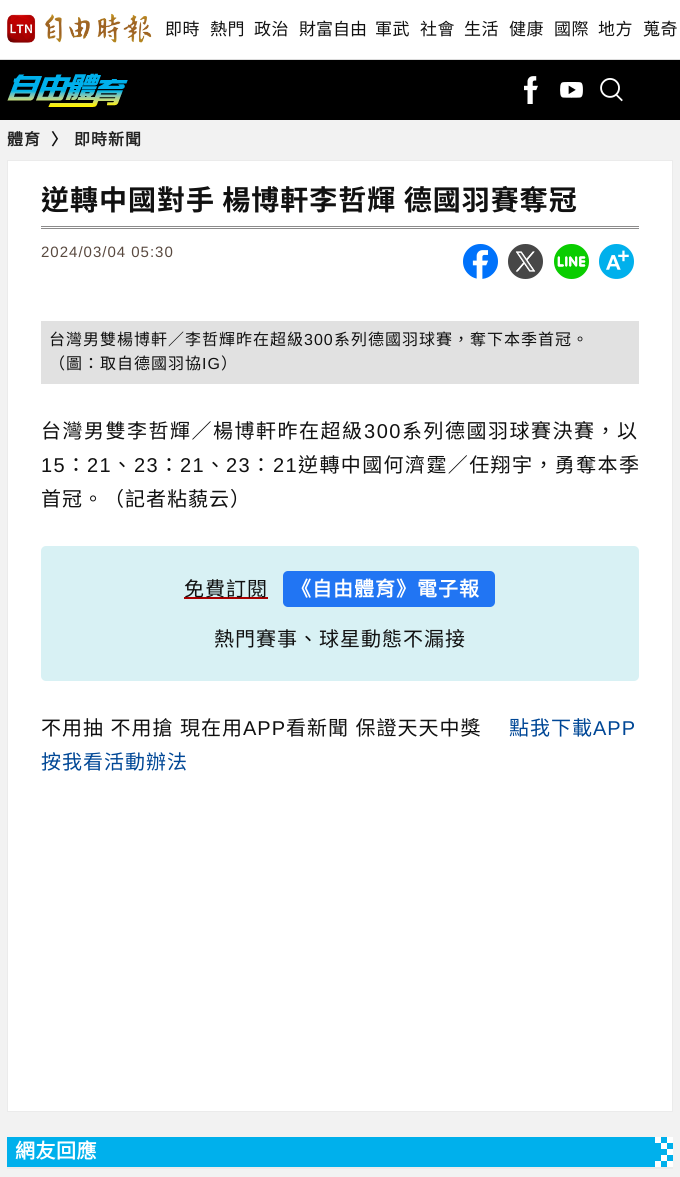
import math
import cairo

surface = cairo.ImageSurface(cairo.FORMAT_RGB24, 680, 1177)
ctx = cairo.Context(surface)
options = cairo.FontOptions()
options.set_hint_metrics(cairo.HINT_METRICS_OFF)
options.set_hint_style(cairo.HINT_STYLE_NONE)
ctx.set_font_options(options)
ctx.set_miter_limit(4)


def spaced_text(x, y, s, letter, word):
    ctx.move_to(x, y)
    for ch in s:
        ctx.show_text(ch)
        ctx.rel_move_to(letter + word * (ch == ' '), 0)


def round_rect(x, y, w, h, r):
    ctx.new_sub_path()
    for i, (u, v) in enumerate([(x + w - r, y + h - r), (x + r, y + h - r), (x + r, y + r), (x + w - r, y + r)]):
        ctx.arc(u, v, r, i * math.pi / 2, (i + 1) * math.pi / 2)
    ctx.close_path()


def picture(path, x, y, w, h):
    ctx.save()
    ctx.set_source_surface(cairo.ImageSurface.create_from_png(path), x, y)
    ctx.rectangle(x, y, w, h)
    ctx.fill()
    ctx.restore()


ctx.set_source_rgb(0.949, 0.949, 0.949)
ctx.paint()
ctx.set_source_rgb(1, 1, 1)
ctx.rectangle(0, 0, 680, 59)
ctx.fill()
ctx.set_source_rgb(0.863, 0.863, 0.863)
ctx.rectangle(0, 59, 680, 1)
ctx.fill()
picture("img1.png", 7, 13, 145, 30)
ctx.select_font_face("Noto Sans CJK TC")
ctx.set_font_size(17)
ctx.set_source_rgb(0.067, 0.067, 0.067)
spaced_text(165, 35, "即時", 0.5, 0)
spaced_text(210, 35, "熱門", 0.5, 0)
spaced_text(254, 35, "政治", 0.5, 0)
ctx.move_to(299, 35)
ctx.show_text("財富自由")
spaced_text(375, 35, "軍武", 0.5, 0)
spaced_text(420, 35, "社會", 0.5, 0)
spaced_text(464, 35, "生活", 0.5, 0)
spaced_text(509, 35, "健康", 0.5, 0)
spaced_text(554, 35, "國際", 0.5, 0)
spaced_text(598, 35, "地方", 0.5, 0)
spaced_text(643, 35, "蒐奇", 0.5, 0)
ctx.set_source_rgb(0, 0, 0)
ctx.rectangle(0, 60, 680, 60)
ctx.fill()
picture("img2.png", 7, 73, 121, 34)
picture("img3.png", 524, 76, 14, 28)
picture("img4.png", 560, 82, 23, 16)
picture("img5.png", 600, 78, 23, 24)
ctx.select_font_face("Noto Sans CJK TC", cairo.FONT_SLANT_NORMAL, cairo.FONT_WEIGHT_BOLD)
ctx.set_font_size(16)
ctx.set_source_rgb(0.133, 0.133, 0.133)
spaced_text(7, 145, "體育", 1, 0)
ctx.set_source_rgb(0.067, 0.067, 0.067)
spaced_text(51, 145, "〉", 1, 0)
ctx.set_source_rgb(0.133, 0.133, 0.133)
spaced_text(74, 145, "即時新聞", 1, 0)
ctx.set_source_rgb(1, 1, 1)
ctx.rectangle(7.5, 160.5, 665, 951)
ctx.fill_preserve()
ctx.set_source_rgb(0.918, 0.918, 0.918)
ctx.set_line_width(1)
ctx.stroke()
ctx.set_source_rgb(0.549, 0.545, 0.545)
ctx.rectangle(41, 226, 598, 1)
ctx.fill()
ctx.rectangle(41, 228, 598, 1)
ctx.fill()
ctx.select_font_face("Noto Sans TC", cairo.FONT_SLANT_NORMAL, cairo.FONT_WEIGHT_BOLD)
ctx.set_font_size(28)
ctx.set_source_rgb(0.067, 0.067, 0.067)
spaced_text(41, 210, "逆轉中國對手 楊博軒李哲輝 德國羽賽奪冠", 1, 0)
ctx.select_font_face("Liberation Sans")
ctx.set_font_size(15)
ctx.set_source_rgb(0.349, 0.286, 0.247)
spaced_text(41, 257, "2024/03/04 05:30", 1, 0)
picture("img6.png", 463, 244, 35, 35)
picture("img7.png", 508, 244, 35, 35)
picture("img8.png", 554, 244, 35, 35)
picture("img9.png", 599, 244, 35, 35)
ctx.set_source_rgb(0.882, 0.882, 0.882)
ctx.rectangle(41, 321, 598, 63)
ctx.fill()
ctx.select_font_face("Noto Sans CJK TC")
ctx.set_font_size(16)
ctx.set_source_rgb(0.067, 0.067, 0.067)
spaced_text(49, 345, "台灣男雙楊博軒／李哲輝昨在超級", 1, 0)
ctx.select_font_face("Liberation Sans")
spaced_text(304, 345, "300", 1, 0)
ctx.select_font_face("Noto Sans CJK TC")
spaced_text(334, 345, "系列德國羽球賽，奪下本季首冠。", 1, 0)
spaced_text(49, 369, "（圖：取自德國羽協", 1, 0)
ctx.select_font_face("Liberation Sans")
spaced_text(202, 369, "IG", 1, 0)
ctx.select_font_face("Noto Sans CJK TC")
spaced_text(221, 369, "）", 1, 0)
ctx.set_font_size(20)
spaced_text(41, 438, "台灣男雙李哲輝／楊博軒昨在超級", 1.5, 0)
ctx.select_font_face("Liberation Sans")
spaced_text(364, 438, "300", 1.5, 0)
ctx.select_font_face("Noto Sans CJK TC")
spaced_text(402, 438, "系列德國羽球賽決賽，以", 1.5, 0)
ctx.select_font_face("Liberation Sans")
spaced_text(41, 472, "15", 1.4, 0)
ctx.select_font_face("Noto Sans CJK TC")
spaced_text(66, 472, "：", 1.4, 0)
ctx.select_font_face("Liberation Sans")
spaced_text(87, 472, "21", 1.4, 0)
ctx.select_font_face("Noto Sans CJK TC")
spaced_text(112, 472, "、", 1.4, 0)
ctx.select_font_face("Liberation Sans")
spaced_text(134, 472, "23", 1.4, 0)
ctx.select_font_face("Noto Sans CJK TC")
spaced_text(159, 472, "：", 1.4, 0)
ctx.select_font_face("Liberation Sans")
spaced_text(180, 472, "21", 1.4, 0)
ctx.select_font_face("Noto Sans CJK TC")
spaced_text(205, 472, "、", 1.4, 0)
ctx.select_font_face("Liberation Sans")
spaced_text(226, 472, "23", 1.4, 0)
ctx.select_font_face("Noto Sans CJK TC")
spaced_text(251, 472, "：", 1.4, 0)
ctx.select_font_face("Liberation Sans")
spaced_text(273, 472, "21", 1.4, 0)
ctx.select_font_face("Noto Sans CJK TC")
spaced_text(298, 472, "逆轉中國何濟霆／任翔宇，勇奪本季", 1.4, 0)
spaced_text(41, 506, "首冠。（記者粘藐云）", 1, 0)
ctx.set_source_rgb(0.847, 0.945, 0.957)
round_rect(41, 546, 598, 135, 5)
ctx.fill()
ctx.set_source_rgb(0.667, 0, 0)
ctx.rectangle(184, 597, 84, 2)
ctx.fill()
ctx.set_source_rgb(0.067, 0.067, 0.067)
spaced_text(184, 596, "免費訂閱", 1, 0)
ctx.set_source_rgb(0.129, 0.459, 0.953)
round_rect(283, 571, 212, 36, 5)
ctx.fill()
ctx.select_font_face("Noto Sans CJK TC", cairo.FONT_SLANT_NORMAL, cairo.FONT_WEIGHT_BOLD)
ctx.set_source_rgb(1, 1, 1)
spaced_text(291, 596, "《自由體育》電子報", 1, 0)
ctx.select_font_face("Noto Sans CJK TC")
ctx.set_source_rgb(0.067, 0.067, 0.067)
spaced_text(214, 646, "熱門賽事、球星動態不漏接", 1, 0)
spaced_text(41, 735, "不用抽 不用搶 現在用", 1, 1)
ctx.select_font_face("Liberation Sans")
spaced_text(243, 735, "APP", 1, 0)
ctx.select_font_face("Noto Sans CJK TC")
spaced_text(286, 735, "看新聞 保證天天中獎", 1, 1)
ctx.set_source_rgb(0, 0.278, 0.588)
spaced_text(509, 735, "點我下載", 1, 0)
ctx.select_font_face("Liberation Sans")
spaced_text(593, 735, "APP", 1, 0)
ctx.select_font_face("Noto Sans CJK TC")
spaced_text(41, 769, "按我看活動辦法", 1, 0)
ctx.set_source_rgb(0, 0.69, 0.925)
ctx.rectangle(7, 1137, 666, 30)
ctx.fill()
picture("img10.png", 655, 1137, 18, 30)
ctx.select_font_face("Noto Sans CJK TC", cairo.FONT_SLANT_NORMAL, cairo.FONT_WEIGHT_BOLD)
ctx.set_source_rgb(1, 1, 1)
spaced_text(15, 1158, "網友回應", 0.5, 0)
ctx.set_source_rgb(0.918, 0.918, 0.918)
ctx.rectangle(7, 1167, 666, 2)
ctx.fill()
surface.write_to_png("page.png")
